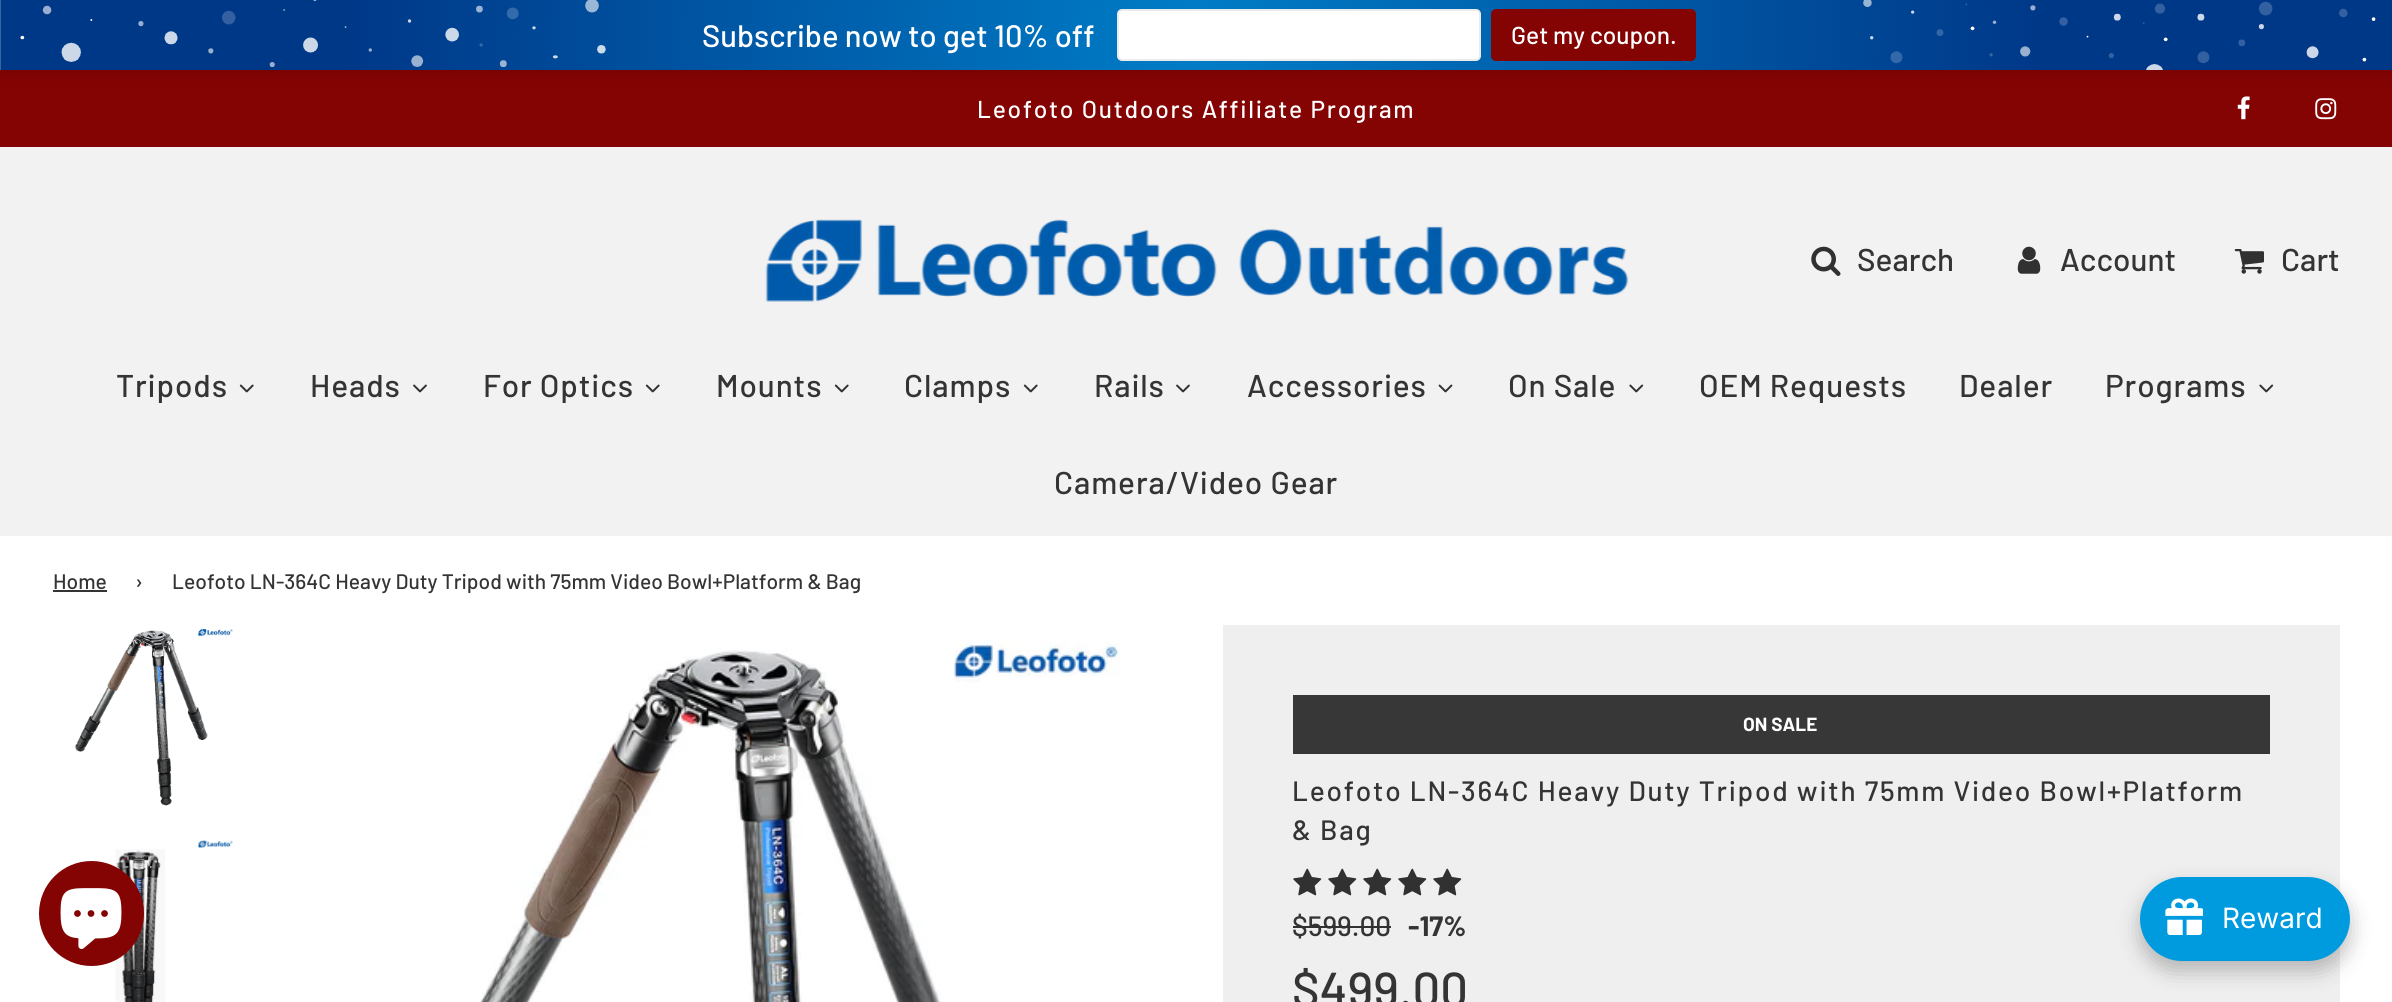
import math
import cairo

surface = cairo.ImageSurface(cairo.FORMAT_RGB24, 2392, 1002)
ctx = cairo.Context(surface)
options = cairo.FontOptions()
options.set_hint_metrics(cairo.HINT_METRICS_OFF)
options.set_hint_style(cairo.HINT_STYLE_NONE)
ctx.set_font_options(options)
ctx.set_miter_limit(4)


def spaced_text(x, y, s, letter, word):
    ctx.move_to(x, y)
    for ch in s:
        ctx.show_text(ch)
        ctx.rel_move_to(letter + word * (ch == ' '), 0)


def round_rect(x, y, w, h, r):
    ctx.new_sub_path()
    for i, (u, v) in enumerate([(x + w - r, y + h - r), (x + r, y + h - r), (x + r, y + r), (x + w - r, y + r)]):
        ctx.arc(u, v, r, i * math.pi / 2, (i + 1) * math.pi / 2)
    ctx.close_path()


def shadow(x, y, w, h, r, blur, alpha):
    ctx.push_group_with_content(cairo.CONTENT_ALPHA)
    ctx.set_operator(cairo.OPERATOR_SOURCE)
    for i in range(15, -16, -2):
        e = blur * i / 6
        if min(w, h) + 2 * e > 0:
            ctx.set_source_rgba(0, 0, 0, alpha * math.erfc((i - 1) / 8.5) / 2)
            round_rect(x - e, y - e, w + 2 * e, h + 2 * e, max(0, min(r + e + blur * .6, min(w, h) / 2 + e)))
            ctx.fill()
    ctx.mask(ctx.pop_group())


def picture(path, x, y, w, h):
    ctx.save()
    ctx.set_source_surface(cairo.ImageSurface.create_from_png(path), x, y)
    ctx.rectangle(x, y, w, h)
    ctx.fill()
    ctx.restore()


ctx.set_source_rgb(1, 1, 1)
ctx.paint()
ctx.set_source_rgb(0.518, 0.012, 0.012)
ctx.rectangle(0, 70, 2392, 77)
ctx.fill()
picture("img2.png", 2237, 96, 13, 24)
ctx.set_source_rgb(0, 0, 0)
shadow(-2, -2, 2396, 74, 0, 8, 0.11)
picture("img1.png", 0, 0, 2392, 70)
ctx.select_font_face("Barlow Medium")
ctx.set_font_size(31)
ctx.set_source_rgb(1, 1, 1)
ctx.move_to(702, 47)
ctx.show_text("Subscribe now to get 10% off")
round_rect(1118, 10, 362, 50, 4)
ctx.fill_preserve()
ctx.set_source_rgb(0.918, 0.918, 0.918)
ctx.stroke()
ctx.set_source_rgb(0.518, 0.012, 0.012)
round_rect(1492, 10, 203, 50, 4)
ctx.fill_preserve()
ctx.stroke()
ctx.set_font_size(24.5)
ctx.set_source_rgb(1, 1, 1)
ctx.move_to(1511, 44)
ctx.show_text("Get my coupon.")
spaced_text(977, 118, "Leofoto Outdoors Affiliate Program", 1.75, 0)
picture("img3.png", 2315, 98, 22, 22)
ctx.set_source_rgb(0.949, 0.949, 0.949)
ctx.rectangle(0, 147, 2392, 389)
ctx.fill()
picture("img4.png", 765, 219, 864, 83)
picture("img5.png", 1811, 246, 30, 30)
ctx.set_font_size(31.5)
ctx.set_source_rgb(0.204, 0.204, 0.204)
ctx.move_to(1857, 271)
ctx.show_text("Search")
picture("img6.png", 2017, 246, 24, 28)
ctx.move_to(2060, 271)
ctx.show_text("Account")
picture("img7.png", 2234, 249, 30, 25)
ctx.move_to(2281, 271)
ctx.show_text("Cart")
spaced_text(116, 397, "Tripods", 0.9, 0)
picture("img8.png", 239, 384, 15, 9)
spaced_text(310, 397, "Heads", 0.9, 0)
picture("img9.png", 413, 384, 14, 9)
spaced_text(483, 397, "For Optics", 0.9, 0)
picture("img8.png", 645, 384, 15, 9)
spaced_text(716, 397, "Mounts", 0.9, 0)
picture("img8.png", 834, 384, 15, 9)
spaced_text(904, 397, "Clamps", 0.9, 0)
picture("img8.png", 1023, 384, 15, 9)
spaced_text(1094, 397, "Rails", 0.9, 0)
picture("img9.png", 1176, 384, 14, 9)
spaced_text(1247, 397, "Accessories", 0.9, 0)
picture("img10.png", 1438, 384, 15, 9)
spaced_text(1508, 397, "On Sale", 0.9, 0)
picture("img11.png", 1629, 384, 15, 9)
spaced_text(1699, 397, "OEM Requests", 0.9, 0)
spaced_text(1959, 397, "Dealer", 0.9, 0)
spaced_text(2105, 397, "Programs", 0.9, 0)
picture("img11.png", 2259, 384, 15, 9)
spaced_text(1054, 494, "Camera/Video Gear", 0.9, 0)
ctx.set_font_size(21)
ctx.move_to(53, 589)
ctx.show_text("Home")
ctx.rectangle(53, 590, 54, 2)
ctx.fill()
ctx.move_to(135, 589)
ctx.show_text("›")
ctx.move_to(172, 589)
ctx.show_text("Leofoto LN-364C Heavy Duty Tripod with 75mm Video Bowl+Platform & Bag")
picture("img12.png", 75, 629, 158, 177)
picture("img13.png", 115, 840, 118, 162)
picture("img14.png", 479, 638, 641, 364)
ctx.set_source_rgb(0.937, 0.937, 0.937)
ctx.rectangle(1223, 625, 1117, 377)
ctx.fill()
ctx.set_source_rgb(0.216, 0.216, 0.216)
ctx.rectangle(1293, 695, 977, 59)
ctx.fill()
ctx.select_font_face("Barlow", cairo.FONT_SLANT_NORMAL, cairo.FONT_WEIGHT_BOLD)
ctx.set_font_size(19)
ctx.set_source_rgb(1, 1, 1)
ctx.move_to(1743, 731)
ctx.show_text("ON SALE")
ctx.select_font_face("Barlow Medium")
ctx.set_font_size(28)
ctx.set_source_rgb(0.204, 0.204, 0.204)
spaced_text(1292, 801, "Leofoto LN-364C Heavy Duty Tripod with 75mm Video Bowl+Platform", 1.75, 0)
spaced_text(1292, 840, "& Bag", 1.75, 0)
picture("img15.png", 1293, 868, 29, 28)
picture("img15.png", 1328, 868, 29, 28)
picture("img15.png", 1363, 868, 29, 28)
picture("img15.png", 1398, 868, 29, 28)
picture("img15.png", 1433, 868, 29, 28)
ctx.move_to(1292, 936)
ctx.show_text("$599.00")
ctx.set_source_rgb(0.196, 0.192, 0.192)
ctx.rectangle(1293, 926, 98, 2)
ctx.fill()
ctx.select_font_face("Barlow", cairo.FONT_SLANT_NORMAL, cairo.FONT_WEIGHT_BOLD)
ctx.set_source_rgb(0.204, 0.204, 0.204)
ctx.move_to(1408, 936)
ctx.show_text("-17%")
ctx.select_font_face("Barlow Medium")
ctx.set_font_size(49)
ctx.move_to(1292, 1007)
ctx.show_text("$499.00")
ctx.set_source_rgb(0.518, 0.012, 0.012)
ctx.new_path()
ctx.arc(91.5, 913.5, 52.5, 0, 2 * math.pi)
ctx.fill()
picture("img16.png", 60, 888, 62, 61)
ctx.set_source_rgb(0, 0, 0)
shadow(2140, 887, 210, 84, 42, 10.5, 0.25)
ctx.set_source_rgb(0, 0.608, 0.875)
round_rect(2140, 877, 210, 84, 42)
ctx.fill()
picture("img17.png", 2165, 898, 38, 37)
ctx.select_font_face("Inter")
ctx.set_font_size(28)
ctx.set_source_rgb(1, 1, 1)
ctx.move_to(2222, 928)
ctx.show_text("Reward")
surface.write_to_png("page.png")
